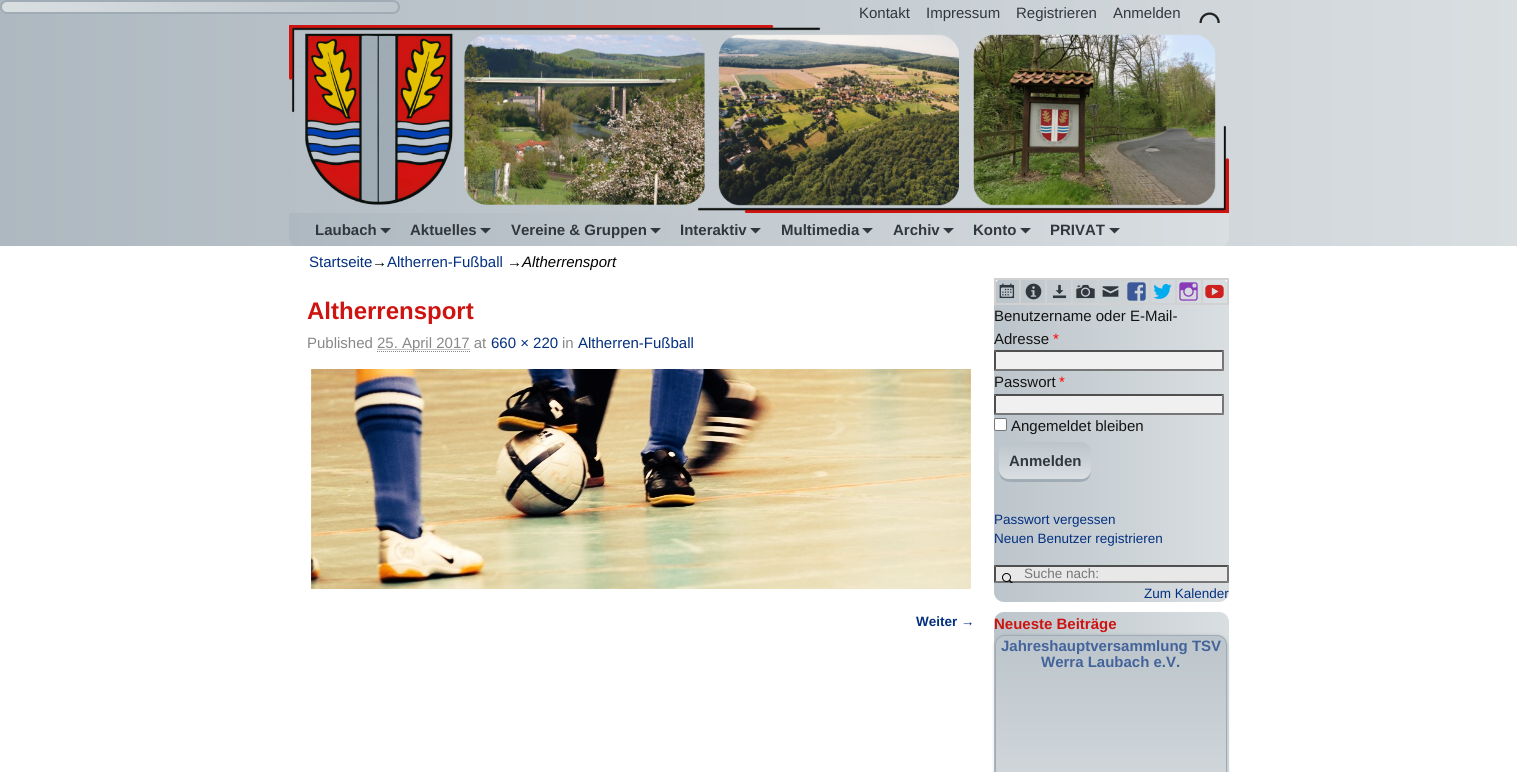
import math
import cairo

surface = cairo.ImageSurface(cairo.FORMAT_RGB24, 1517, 772)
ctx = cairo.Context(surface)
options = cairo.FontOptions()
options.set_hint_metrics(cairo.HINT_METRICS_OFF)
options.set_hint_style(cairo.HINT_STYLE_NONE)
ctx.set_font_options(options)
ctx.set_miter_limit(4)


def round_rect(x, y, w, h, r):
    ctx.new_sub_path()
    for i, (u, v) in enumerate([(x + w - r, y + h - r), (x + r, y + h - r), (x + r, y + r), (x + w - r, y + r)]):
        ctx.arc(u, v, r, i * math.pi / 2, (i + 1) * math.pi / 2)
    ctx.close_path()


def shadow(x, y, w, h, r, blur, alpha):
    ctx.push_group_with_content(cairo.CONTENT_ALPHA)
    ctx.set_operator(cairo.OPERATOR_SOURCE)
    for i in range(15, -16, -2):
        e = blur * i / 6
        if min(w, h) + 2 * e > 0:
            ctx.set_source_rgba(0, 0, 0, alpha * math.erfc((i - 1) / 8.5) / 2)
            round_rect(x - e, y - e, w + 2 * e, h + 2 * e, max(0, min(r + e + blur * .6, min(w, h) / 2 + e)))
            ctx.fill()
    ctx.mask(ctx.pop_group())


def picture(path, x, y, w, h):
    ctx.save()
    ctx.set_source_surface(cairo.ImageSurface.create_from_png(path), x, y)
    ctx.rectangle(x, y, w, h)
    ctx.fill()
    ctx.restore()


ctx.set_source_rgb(1, 1, 1)
ctx.paint()
gradient = cairo.LinearGradient(0, 123, 1517, 123)
gradient.add_color_stop_rgba(0, 0.682, 0.722, 0.753, 1)
gradient.add_color_stop_rgba(1, 0.851, 0.871, 0.882, 1)
ctx.set_source(gradient)
ctx.rectangle(0, 0, 1517, 246)
ctx.fill()
gradient = cairo.LinearGradient(49, 94, 351, -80)
gradient.add_color_stop_rgba(0, 0.851, 0.871, 0.882, 1)
gradient.add_color_stop_rgba(1, 0.737, 0.773, 0.796, 1)
ctx.set_source(gradient)
ctx.rectangle(2, 2, 396, 10)
ctx.fill()
round_rect(1, 1, 398, 12, 6)
ctx.set_source_rgb(0.627, 0.675, 0.71)
ctx.stroke()
ctx.select_font_face("Liberation Sans")
ctx.set_font_size(15)
ctx.set_source_rgb(0.188, 0.22, 0.243)
ctx.move_to(859, 18)
ctx.show_text("Kontakt")
ctx.move_to(926, 18)
ctx.show_text("Impressum")
ctx.move_to(1016, 18)
ctx.show_text("Registrieren")
ctx.move_to(1113, 18)
ctx.show_text("Anmelden")
picture("img1.png", 1199, 12, 21, 11)
picture("img2.png", 289, 25, 940, 188)
gradient = cairo.LinearGradient(289, 230, 1229, 229)
gradient.add_color_stop_rgba(0, 0.682, 0.722, 0.753, 1)
gradient.add_color_stop_rgba(1, 0.851, 0.871, 0.882, 1)
ctx.set_source(gradient)
ctx.new_path()
ctx.move_to(289, 213)
ctx.line_to(1229, 213)
ctx.line_to(1229, 238)
ctx.curve_to(1229, 242.5, 1225.5, 246, 1221, 246)
ctx.line_to(297, 246)
ctx.curve_to(292.5, 246, 289, 242.5, 289, 238)
ctx.close_path()
ctx.fill()
ctx.select_font_face("Liberation Sans", cairo.FONT_SLANT_NORMAL, cairo.FONT_WEIGHT_BOLD)
ctx.set_source_rgb(0.188, 0.22, 0.243)
ctx.move_to(315, 235)
ctx.show_text("Laubach")
ctx.new_path()
ctx.move_to(380, 228)
ctx.line_to(391, 228)
ctx.line_to(385.5, 233.5)
ctx.close_path()
ctx.fill()
ctx.move_to(410, 235)
ctx.show_text("Aktuelles")
ctx.new_path()
ctx.move_to(480, 228)
ctx.line_to(491, 228)
ctx.line_to(485.5, 233.5)
ctx.close_path()
ctx.fill()
ctx.move_to(511, 235)
ctx.show_text("Vereine & Gruppen")
ctx.new_path()
ctx.move_to(650, 228)
ctx.line_to(661, 228)
ctx.line_to(655.5, 233.5)
ctx.close_path()
ctx.fill()
ctx.move_to(680, 235)
ctx.show_text("Interaktiv")
ctx.new_path()
ctx.move_to(750, 228)
ctx.line_to(761, 228)
ctx.line_to(755.5, 233.5)
ctx.close_path()
ctx.fill()
ctx.move_to(781, 235)
ctx.show_text("Multimedia")
ctx.new_path()
ctx.move_to(862, 228)
ctx.line_to(873, 228)
ctx.line_to(867.5, 233.5)
ctx.close_path()
ctx.fill()
ctx.move_to(893, 235)
ctx.show_text("Archiv")
ctx.new_path()
ctx.move_to(943, 228)
ctx.line_to(954, 228)
ctx.line_to(948.5, 233.5)
ctx.close_path()
ctx.fill()
ctx.move_to(973, 235)
ctx.show_text("Konto")
ctx.new_path()
ctx.move_to(1020, 228)
ctx.line_to(1031, 228)
ctx.line_to(1025.5, 233.5)
ctx.close_path()
ctx.fill()
ctx.move_to(1050, 235)
ctx.show_text("PRIVAT")
ctx.new_path()
ctx.move_to(1109, 228)
ctx.line_to(1120, 228)
ctx.line_to(1114.5, 233.5)
ctx.close_path()
ctx.fill()
ctx.select_font_face("Liberation Sans")
ctx.set_source_rgb(0.012, 0.184, 0.502)
ctx.move_to(309, 267)
ctx.show_text("Startseite")
ctx.set_source_rgb(0, 0, 0)
ctx.move_to(372, 267)
ctx.show_text("→")
ctx.set_source_rgb(0.012, 0.184, 0.502)
ctx.move_to(387, 267)
ctx.show_text("Altherren-Fußball")
ctx.set_source_rgb(0, 0, 0)
ctx.move_to(507, 267)
ctx.show_text("→")
ctx.select_font_face("Liberation Sans", cairo.FONT_SLANT_ITALIC)
ctx.move_to(522, 267)
ctx.show_text("Altherrensport")
ctx.select_font_face("Liberation Sans", cairo.FONT_SLANT_NORMAL, cairo.FONT_WEIGHT_BOLD)
ctx.set_font_size(24)
ctx.set_source_rgb(0.808, 0.082, 0.067)
ctx.move_to(307, 319)
ctx.show_text("Altherrensport")
ctx.select_font_face("Liberation Sans")
ctx.set_font_size(15)
ctx.set_source_rgb(0.533, 0.533, 0.533)
ctx.move_to(307, 348)
ctx.show_text("Published")
ctx.new_path()
ctx.move_to(377, 351.5)
ctx.line_to(470, 351.5)
ctx.set_line_width(1)
ctx.set_dash([1, 1])
ctx.stroke()
ctx.new_path()
ctx.move_to(377.5, 349.5)
ctx.line_to(470, 349.5)
ctx.stroke()
ctx.move_to(377, 348)
ctx.show_text("25. April 2017 at")
ctx.set_source_rgb(0.012, 0.184, 0.502)
ctx.move_to(491, 348)
ctx.show_text("660 × 220")
ctx.set_source_rgb(0.533, 0.533, 0.533)
ctx.move_to(562, 348)
ctx.show_text("in")
ctx.set_source_rgb(0.012, 0.184, 0.502)
ctx.move_to(578, 348)
ctx.show_text("Altherren-Fußball")
picture("img3.png", 311, 369, 660, 220)
ctx.select_font_face("Liberation Sans", cairo.FONT_SLANT_NORMAL, cairo.FONT_WEIGHT_BOLD)
ctx.set_font_size(13.5)
ctx.move_to(916, 626)
ctx.show_text("Weiter →")
gradient = cairo.LinearGradient(994, 440, 1229, 440)
gradient.add_color_stop_rgba(0, 0.737, 0.773, 0.796, 1)
gradient.add_color_stop_rgba(1, 0.851, 0.871, 0.882, 1)
ctx.set_source(gradient)
round_rect(994, 278, 235, 324, 10)
ctx.fill()
ctx.rectangle(994.5, 278.5, 234, 26)
ctx.set_source_rgb(0.82, 0.82, 0.82)
ctx.set_dash([])
ctx.stroke()
ctx.rectangle(995.5, 279.5, 24, 24)
ctx.stroke()
picture("img4.png", 999, 283, 16, 16)
ctx.rectangle(1020.5, 279.5, 25, 24)
ctx.stroke()
picture("img5.png", 1025, 283, 17, 17)
ctx.rectangle(1046.5, 279.5, 25, 24)
ctx.stroke()
picture("img6.png", 1052, 284, 15, 15)
ctx.rectangle(1072.5, 279.5, 25, 24)
ctx.stroke()
picture("img7.png", 1076, 284, 19, 15)
ctx.rectangle(1098.5, 279.5, 25, 24)
ctx.stroke()
picture("img8.png", 1102, 286, 17, 11)
ctx.rectangle(1124.5, 279.5, 25, 24)
ctx.stroke()
picture("img9.png", 1127, 282, 19, 19)
ctx.rectangle(1150.5, 279.5, 25, 24)
ctx.stroke()
picture("img10.png", 1153, 284, 19, 15)
ctx.rectangle(1176.5, 279.5, 25, 24)
ctx.stroke()
picture("img11.png", 1179, 282, 19, 19)
ctx.rectangle(1202.5, 279.5, 25, 24)
ctx.stroke()
picture("img12.png", 1205, 284, 19, 15)
ctx.select_font_face("Liberation Sans")
ctx.set_font_size(15)
ctx.set_source_rgb(0.078, 0.078, 0.078)
ctx.move_to(994, 321)
ctx.show_text("Benutzername oder E-Mail-")
ctx.move_to(994, 344)
ctx.show_text("Adresse")
ctx.set_source_rgb(1, 0, 0)
ctx.move_to(1053, 344)
ctx.show_text("*")
ctx.set_source_rgb(0.941, 0.941, 0.941)
ctx.rectangle(994, 350, 230, 21)
ctx.fill()
ctx.set_source_rgb(0.31, 0.31, 0.31)
ctx.new_path()
ctx.move_to(994, 350)
ctx.line_to(1224, 350)
ctx.line_to(1222, 352)
ctx.line_to(996, 352)
ctx.close_path()
ctx.fill()
ctx.set_source_rgb(0.463, 0.463, 0.463)
ctx.new_path()
ctx.move_to(1224, 350)
ctx.line_to(1224, 371)
ctx.line_to(1222, 369)
ctx.line_to(1222, 352)
ctx.close_path()
ctx.fill()
ctx.new_path()
ctx.move_to(1224, 371)
ctx.line_to(994, 371)
ctx.line_to(996, 369)
ctx.line_to(1222, 369)
ctx.close_path()
ctx.fill()
ctx.set_source_rgb(0.31, 0.31, 0.31)
ctx.new_path()
ctx.move_to(994, 371)
ctx.line_to(994, 350)
ctx.line_to(996, 352)
ctx.line_to(996, 369)
ctx.close_path()
ctx.fill()
ctx.set_source_rgb(0.078, 0.078, 0.078)
ctx.move_to(994, 387)
ctx.show_text("Passwort")
ctx.set_source_rgb(1, 0, 0)
ctx.move_to(1059, 387)
ctx.show_text("*")
ctx.set_source_rgb(0.941, 0.941, 0.941)
ctx.rectangle(994, 394, 230, 21)
ctx.fill()
ctx.set_source_rgb(0.31, 0.31, 0.31)
ctx.new_path()
ctx.move_to(994, 394)
ctx.line_to(1224, 394)
ctx.line_to(1222, 396)
ctx.line_to(996, 396)
ctx.close_path()
ctx.fill()
ctx.set_source_rgb(0.463, 0.463, 0.463)
ctx.new_path()
ctx.move_to(1224, 394)
ctx.line_to(1224, 415)
ctx.line_to(1222, 413)
ctx.line_to(1222, 396)
ctx.close_path()
ctx.fill()
ctx.new_path()
ctx.move_to(1224, 415)
ctx.line_to(994, 415)
ctx.line_to(996, 413)
ctx.line_to(1222, 413)
ctx.close_path()
ctx.fill()
ctx.set_source_rgb(0.31, 0.31, 0.31)
ctx.new_path()
ctx.move_to(994, 415)
ctx.line_to(994, 394)
ctx.line_to(996, 396)
ctx.line_to(996, 413)
ctx.close_path()
ctx.fill()
ctx.set_source_rgb(1, 1, 1)
round_rect(994.5, 418.5, 12, 12, 1.5)
ctx.fill_preserve()
ctx.set_source_rgb(0.463, 0.463, 0.463)
ctx.stroke()
ctx.set_source_rgb(0.078, 0.078, 0.078)
ctx.move_to(1011, 431)
ctx.show_text("Angemeldet bleiben")
ctx.set_source_rgb(0.627, 0.675, 0.71)
ctx.new_path()
ctx.move_to(999, 469)
ctx.curve_to(999, 484, 1009, 482, 1021, 482)
ctx.line_to(1069, 482)
ctx.curve_to(1081, 482, 1091, 484, 1091, 469)
ctx.curve_to(1091, 475, 1087, 479, 1081, 479)
ctx.line_to(1009, 479)
ctx.curve_to(1003, 479, 999, 475, 999, 469)
ctx.close_path()
ctx.fill()
gradient = cairo.LinearGradient(1045, 442, 1045, 479)
gradient.add_color_stop_rgba(0, 0.737, 0.773, 0.796, 1)
gradient.add_color_stop_rgba(1, 0.851, 0.871, 0.882, 1)
ctx.set_source(gradient)
round_rect(999, 442, 92, 37, 10)
ctx.fill()
ctx.select_font_face("Liberation Sans", cairo.FONT_SLANT_NORMAL, cairo.FONT_WEIGHT_BOLD)
ctx.set_source_rgb(0.188, 0.22, 0.243)
ctx.move_to(1009, 466)
ctx.show_text("Anmelden")
ctx.select_font_face("Liberation Sans")
ctx.set_font_size(13.5)
ctx.set_source_rgb(0.012, 0.184, 0.502)
ctx.move_to(994, 524)
ctx.show_text("Passwort vergessen")
ctx.move_to(994, 543)
ctx.show_text("Neuen Benutzer registrieren")
ctx.set_source_rgb(0.91, 0.91, 0.91)
ctx.rectangle(994, 565, 235, 18)
ctx.fill()
ctx.set_source_rgb(0.31, 0.31, 0.31)
ctx.new_path()
ctx.move_to(994, 565)
ctx.line_to(1229, 565)
ctx.line_to(1227, 567)
ctx.line_to(996, 567)
ctx.close_path()
ctx.fill()
ctx.set_source_rgb(0.463, 0.463, 0.463)
ctx.new_path()
ctx.move_to(1229, 565)
ctx.line_to(1229, 583)
ctx.line_to(1227, 581)
ctx.line_to(1227, 567)
ctx.close_path()
ctx.fill()
ctx.new_path()
ctx.move_to(1229, 583)
ctx.line_to(994, 583)
ctx.line_to(996, 581)
ctx.line_to(1227, 581)
ctx.close_path()
ctx.fill()
picture("img13.png", 1002, 573, 11, 10)
ctx.set_source_rgb(0.31, 0.31, 0.31)
ctx.new_path()
ctx.move_to(994, 583)
ctx.line_to(994, 565)
ctx.line_to(996, 567)
ctx.line_to(996, 581)
ctx.close_path()
ctx.fill()
ctx.set_source_rgb(0.459, 0.459, 0.459)
ctx.move_to(1024, 578)
ctx.show_text("Suche nach:")
ctx.set_source_rgb(0.012, 0.184, 0.502)
ctx.move_to(1144, 598)
ctx.show_text("Zum Kalender")
gradient = cairo.LinearGradient(994, 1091, 1229, 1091)
gradient.add_color_stop_rgba(0, 0.737, 0.773, 0.796, 1)
gradient.add_color_stop_rgba(1, 0.851, 0.871, 0.882, 1)
ctx.set_source(gradient)
round_rect(994, 612, 235, 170, 10)
ctx.fill()
ctx.select_font_face("Liberation Sans", cairo.FONT_SLANT_NORMAL, cairo.FONT_WEIGHT_BOLD)
ctx.set_font_size(15)
ctx.set_source_rgb(0.808, 0.082, 0.067)
ctx.move_to(994, 629)
ctx.show_text("Neueste Beiträge")
ctx.set_source_rgb(0, 0, 0)
shadow(995, 636, 232, 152, 10, 2, 0.2)
ctx.save()
round_rect(995, 635, 232, 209, 10)
ctx.clip()
gradient = cairo.LinearGradient(1111, 636, 1111, 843)
gradient.add_color_stop_rgba(0, 0.737, 0.773, 0.796, 1)
gradient.add_color_stop_rgba(1, 0.851, 0.871, 0.882, 1)
ctx.set_source(gradient)
ctx.rectangle(995, 636, 232, 136)
ctx.fill()
ctx.restore()
round_rect(995.5, 635.5, 231, 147, 9.5)
ctx.set_source_rgb(0.627, 0.675, 0.71)
ctx.stroke()
ctx.set_source_rgb(0.263, 0.388, 0.604)
ctx.move_to(1001, 651)
ctx.show_text("Jahreshauptversammlung TSV")
ctx.move_to(1041, 667)
ctx.show_text("Werra Laubach e.V.")
surface.write_to_png("page.png")
